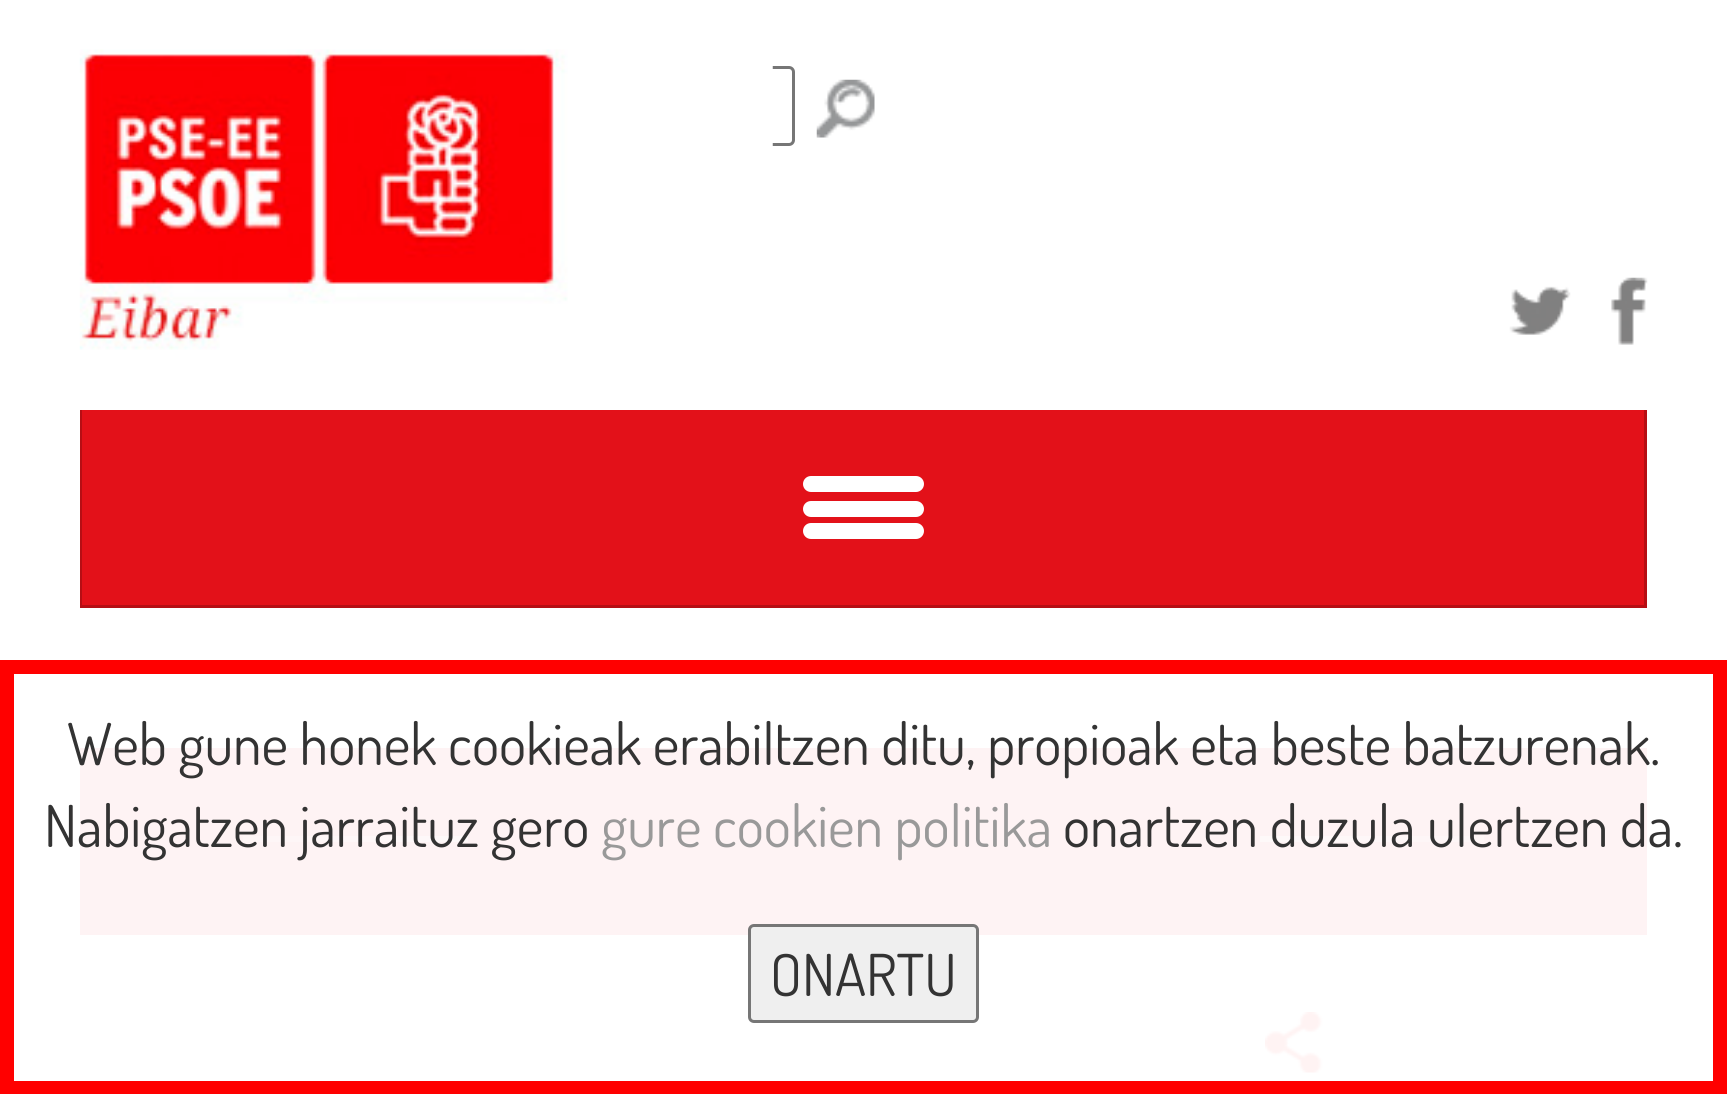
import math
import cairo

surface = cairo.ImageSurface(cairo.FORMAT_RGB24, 1727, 1094)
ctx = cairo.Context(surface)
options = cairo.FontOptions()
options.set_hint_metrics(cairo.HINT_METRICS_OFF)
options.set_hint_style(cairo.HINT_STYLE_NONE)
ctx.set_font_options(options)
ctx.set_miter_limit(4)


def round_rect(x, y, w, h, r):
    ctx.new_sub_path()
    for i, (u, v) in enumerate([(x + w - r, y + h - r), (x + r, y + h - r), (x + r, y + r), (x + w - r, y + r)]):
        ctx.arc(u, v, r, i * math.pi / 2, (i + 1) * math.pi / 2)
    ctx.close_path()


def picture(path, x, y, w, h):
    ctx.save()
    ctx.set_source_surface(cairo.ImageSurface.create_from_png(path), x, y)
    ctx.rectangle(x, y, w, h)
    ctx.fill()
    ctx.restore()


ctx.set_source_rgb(1, 1, 1)
ctx.paint()
round_rect(293.5, 67.5, 500, 77, 4.5)
ctx.set_source_rgb(0.463, 0.463, 0.463)
ctx.set_line_width(3)
ctx.stroke()
picture("img1.png", 79, 49, 694, 301)
picture("img2.png", 1509, 286, 62, 49)
picture("img3.png", 1611, 277, 37, 68)
ctx.set_source_rgb(0.89, 0.067, 0.098)
ctx.rectangle(80, 410, 1567, 198)
ctx.fill()
ctx.set_source_rgb(0.714, 0.055, 0.078)
ctx.new_path()
ctx.move_to(1647, 410)
ctx.line_to(1647, 608)
ctx.line_to(1644, 605)
ctx.line_to(1644, 410)
ctx.close_path()
ctx.fill()
ctx.set_source_rgba(0, 0, 0, 0.2)
ctx.new_path()
ctx.move_to(1647, 608)
ctx.line_to(80, 608)
ctx.line_to(82, 605)
ctx.line_to(1644, 605)
ctx.close_path()
ctx.fill()
ctx.new_path()
ctx.move_to(80, 608)
ctx.line_to(80, 410)
ctx.line_to(82, 410)
ctx.line_to(82, 605)
ctx.close_path()
ctx.fill()
ctx.set_source_rgb(1, 1, 1)
round_rect(803, 476, 121, 16, 8)
ctx.fill()
round_rect(803, 501, 121, 16, 8)
ctx.fill()
round_rect(803, 523, 121, 16, 8)
ctx.fill()
picture("img4.png", 816, 79, 59, 59)
ctx.set_source_rgb(0.996, 0.953, 0.957)
ctx.rectangle(80, 748, 1567, 187)
ctx.fill()
gradient = cairo.LinearGradient(80, 839, 1647, 839)
gradient.add_color_stop_rgba(0, 0.996, 0.953, 0.957, 1)
gradient.add_color_stop_rgba(0.5, 1, 1, 1, 1)
gradient.add_color_stop_rgba(1, 0.996, 0.953, 0.957, 1)
ctx.set_source(gradient)
ctx.rectangle(243, 836, 1241, 6)
ctx.fill()
ctx.set_source_rgb(0.996, 0.953, 0.957)
ctx.rectangle(468, 836, 792, 6)
ctx.fill()
picture("img5.png", 1265, 1012, 58, 61)
ctx.rectangle(7, 667, 1713, 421)
ctx.set_source_rgb(1, 0, 0)
ctx.set_line_width(14)
ctx.stroke()
ctx.select_font_face("Dosis")
ctx.set_font_size(57.75)
ctx.set_source_rgb(0.2, 0.2, 0.2)
ctx.move_to(67, 765)
ctx.show_text("Web gune honek cookieak erabiltzen ditu, propioak eta beste batzurenak.")
ctx.move_to(44, 847)
ctx.show_text("Nabigatzen jarraituz gero")
ctx.set_source_rgb(0.6, 0.6, 0.6)
ctx.move_to(601, 847)
ctx.show_text("gure cookien politika")
ctx.set_source_rgb(0.2, 0.2, 0.2)
ctx.move_to(1063, 847)
ctx.show_text("onartzen duzula ulertzen da.")
ctx.set_source_rgb(0.937, 0.937, 0.937)
round_rect(749.5, 925.5, 228, 96, 4.5)
ctx.fill_preserve()
ctx.set_source_rgb(0.463, 0.463, 0.463)
ctx.set_line_width(3)
ctx.stroke()
ctx.set_source_rgb(0.2, 0.2, 0.2)
ctx.move_to(770, 996)
ctx.show_text("ONARTU")
surface.write_to_png("page.png")
